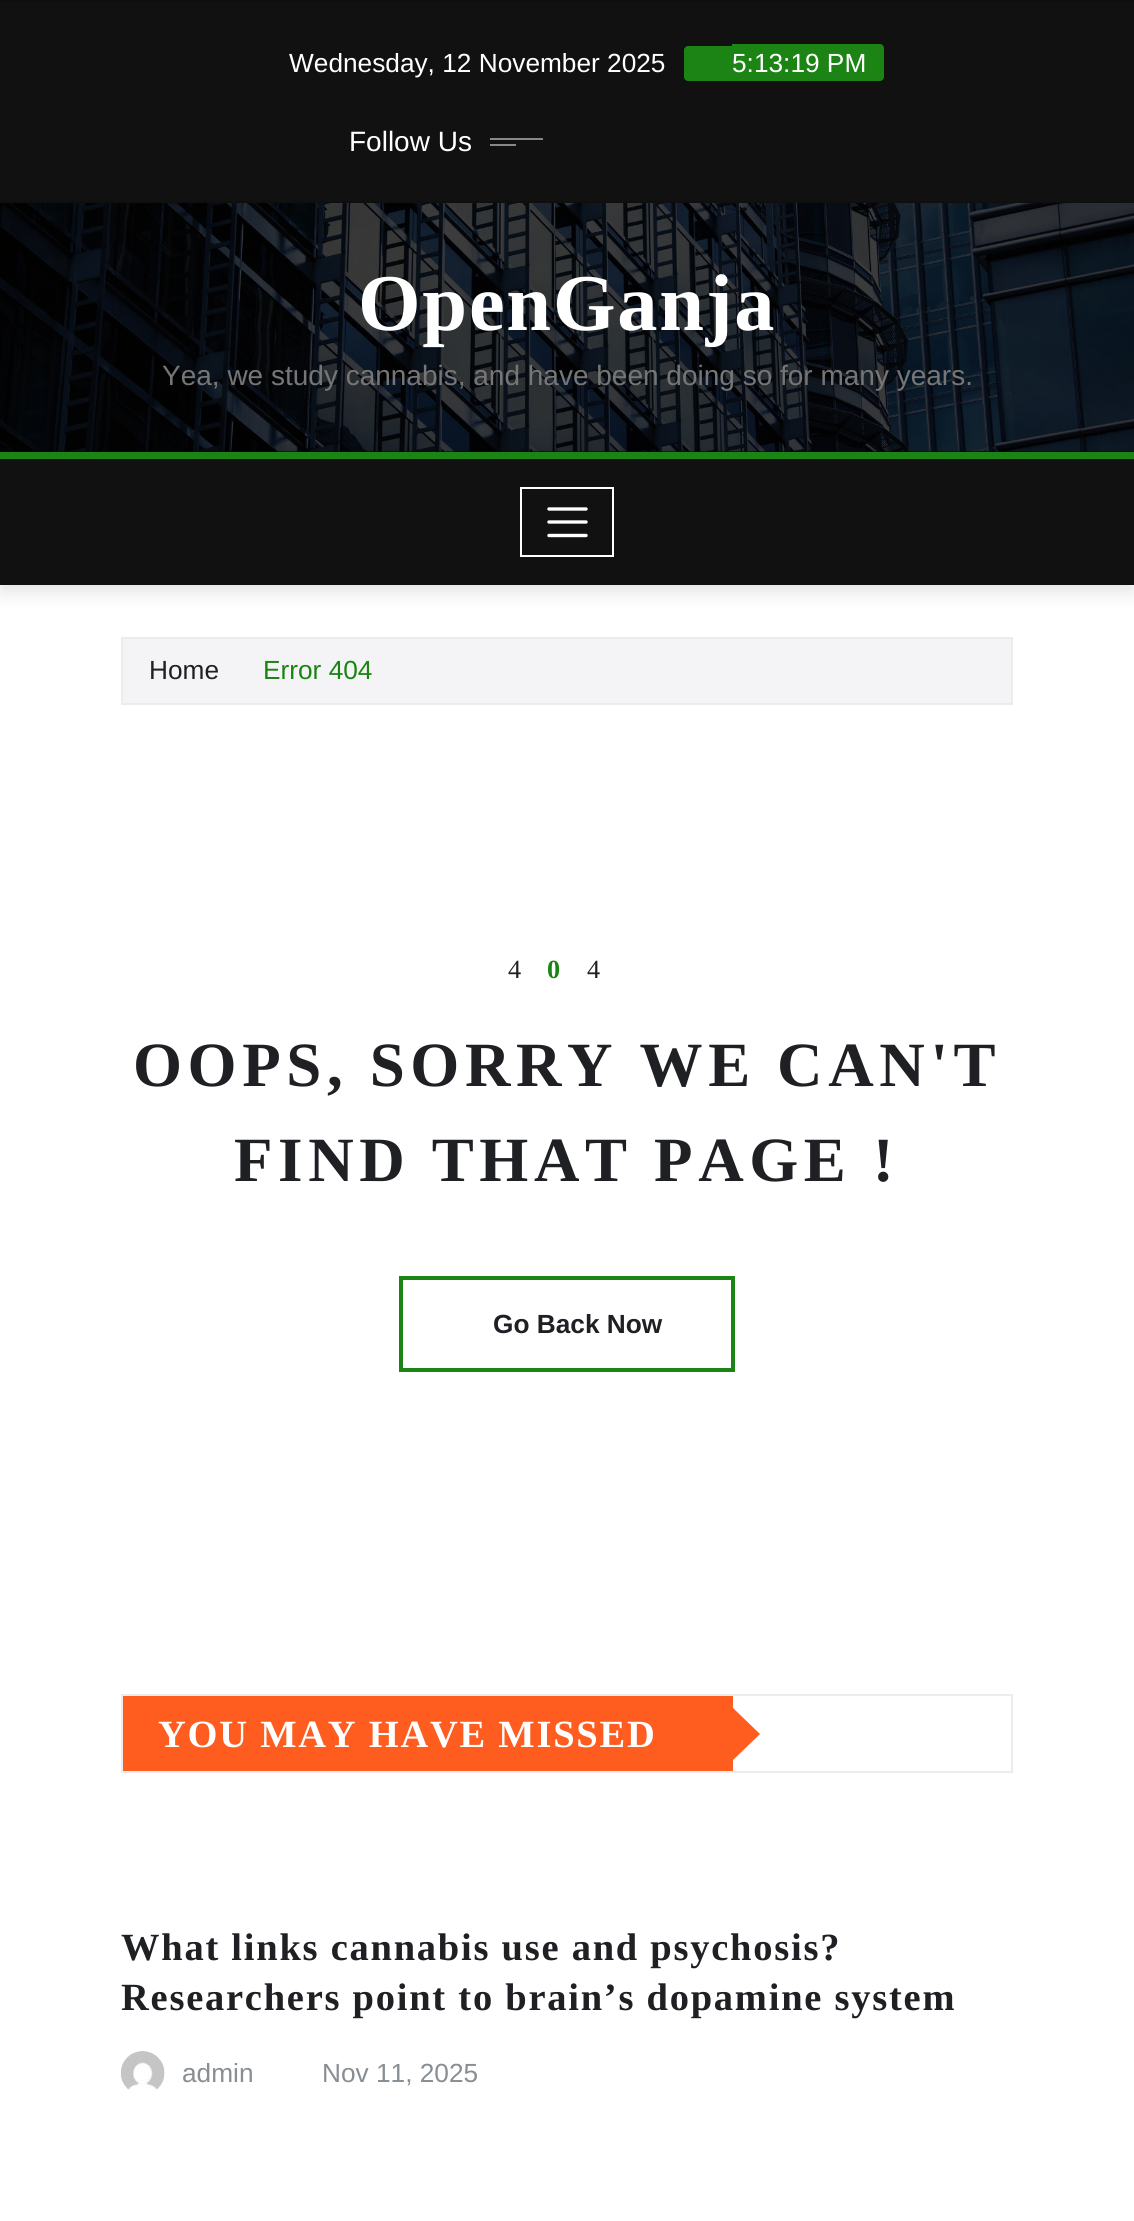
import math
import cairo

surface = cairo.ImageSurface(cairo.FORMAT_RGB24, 1134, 2221)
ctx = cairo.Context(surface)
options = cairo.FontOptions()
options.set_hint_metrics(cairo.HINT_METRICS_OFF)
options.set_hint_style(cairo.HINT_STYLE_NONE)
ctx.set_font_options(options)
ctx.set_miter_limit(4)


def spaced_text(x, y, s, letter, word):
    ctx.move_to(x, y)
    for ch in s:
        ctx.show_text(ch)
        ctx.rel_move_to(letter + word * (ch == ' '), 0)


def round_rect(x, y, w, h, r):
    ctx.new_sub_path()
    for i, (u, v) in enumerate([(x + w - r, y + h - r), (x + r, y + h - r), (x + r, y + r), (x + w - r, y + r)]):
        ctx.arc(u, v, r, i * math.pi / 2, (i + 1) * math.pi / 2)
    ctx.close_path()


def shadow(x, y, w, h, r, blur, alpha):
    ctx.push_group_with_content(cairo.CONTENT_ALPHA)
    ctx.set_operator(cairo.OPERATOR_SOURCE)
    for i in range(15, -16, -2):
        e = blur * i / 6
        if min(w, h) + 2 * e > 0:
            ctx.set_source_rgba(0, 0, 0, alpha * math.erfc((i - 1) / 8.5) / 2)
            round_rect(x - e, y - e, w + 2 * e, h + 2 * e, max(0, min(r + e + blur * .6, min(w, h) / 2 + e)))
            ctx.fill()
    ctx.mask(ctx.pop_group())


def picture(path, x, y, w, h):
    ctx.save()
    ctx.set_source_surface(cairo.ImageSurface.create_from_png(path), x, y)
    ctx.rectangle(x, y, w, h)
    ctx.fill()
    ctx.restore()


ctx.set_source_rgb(1, 1, 1)
ctx.paint()
ctx.set_source_rgb(0.067, 0.067, 0.067)
ctx.rectangle(0, 2, 1134, 199)
ctx.fill()
ctx.set_source_rgb(0.059, 0.059, 0.059)
ctx.rectangle(0, 0, 1134, 2)
ctx.fill()
ctx.rectangle(0, 201, 1134, 2)
ctx.fill()
ctx.select_font_face("Liberation Sans")
ctx.set_font_size(26.25)
ctx.set_source_rgb(1, 1, 1)
ctx.move_to(289, 72)
ctx.show_text("Wednesday, 12 November 2025")
ctx.set_source_rgb(0.106, 0.518, 0.082)
ctx.new_path()
ctx.move_to(732, 44)
ctx.line_to(880, 44)
ctx.curve_to(882, 44, 884, 46, 884, 48)
ctx.line_to(884, 77)
ctx.curve_to(884, 79, 882, 81, 880, 81)
ctx.line_to(732, 81)
ctx.close_path()
ctx.fill()
ctx.set_source_rgb(1, 1, 1)
ctx.move_to(732, 72)
ctx.show_text("5:13:19 PM")
ctx.set_source_rgb(0.106, 0.518, 0.082)
ctx.new_path()
ctx.move_to(688, 46)
ctx.line_to(732, 46)
ctx.line_to(732, 81)
ctx.line_to(688, 81)
ctx.curve_to(686, 81, 684, 79, 684, 77)
ctx.line_to(684, 50)
ctx.curve_to(684, 48, 686, 46, 688, 46)
ctx.close_path()
ctx.fill()
ctx.set_font_size(28)
ctx.set_source_rgb(1, 1, 1)
ctx.move_to(349, 151)
ctx.show_text("Follow Us")
ctx.set_source_rgb(0.533, 0.533, 0.533)
ctx.rectangle(490, 138, 53, 2)
ctx.fill()
ctx.rectangle(490, 144, 26, 2)
ctx.fill()
ctx.set_source_rgb(0.024, 0.031, 0.043)
ctx.rectangle(0, 451, 1134, 1)
ctx.fill()
picture("img1.png", 0, 203, 1134, 249)
ctx.select_font_face("Liberation Serif", cairo.FONT_SLANT_NORMAL, cairo.FONT_WEIGHT_BOLD)
ctx.set_font_size(80.5)
ctx.set_source_rgb(1, 1, 1)
spaced_text(358, 330, "OpenGanja", 1.75, 0)
ctx.select_font_face("Liberation Sans")
ctx.set_font_size(28)
ctx.set_source_rgb(0.463, 0.463, 0.463)
ctx.move_to(162, 385)
ctx.show_text("Yea, we study cannabis, and have been doing so for many years.")
ctx.set_source_rgb(0, 0, 0)
shadow(0, 460, 1134, 133, 0, 9, 0.1)
ctx.set_source_rgb(0.067, 0.067, 0.067)
ctx.rectangle(0, 459, 1134, 126)
ctx.fill()
ctx.set_source_rgb(0.106, 0.518, 0.082)
ctx.rectangle(0, 452, 1134, 7)
ctx.fill()
ctx.rectangle(521, 488, 92, 68)
ctx.set_source_rgb(1, 1, 1)
ctx.stroke()
ctx.new_path()
ctx.move_to(549, 509)
ctx.line_to(586, 509)
ctx.move_to(549, 522)
ctx.line_to(586, 522)
ctx.move_to(549, 535.5)
ctx.line_to(586, 535.5)
ctx.set_line_width(3.4)
ctx.set_line_cap(cairo.LINE_CAP_ROUND)
ctx.stroke()
ctx.set_source_rgb(0.957, 0.957, 0.961)
ctx.rectangle(122, 638, 890, 66)
ctx.fill_preserve()
ctx.set_source_rgb(0.922, 0.922, 0.922)
ctx.set_line_width(2)
ctx.set_line_cap(cairo.LINE_CAP_BUTT)
ctx.stroke()
ctx.set_font_size(26.25)
ctx.set_source_rgb(0.122, 0.125, 0.141)
ctx.move_to(149, 679)
ctx.show_text("Home")
ctx.set_source_rgb(0.106, 0.518, 0.082)
ctx.move_to(263, 679)
ctx.show_text("Error 404")
ctx.select_font_face("Liberation Serif")
ctx.set_source_rgb(0.122, 0.125, 0.141)
spaced_text(508, 978, "4", 26, 0)
ctx.select_font_face("Liberation Serif", cairo.FONT_SLANT_NORMAL, cairo.FONT_WEIGHT_BOLD)
ctx.set_source_rgb(0.106, 0.518, 0.082)
spaced_text(547, 978, "0", 26, 0)
ctx.select_font_face("Liberation Serif")
ctx.set_source_rgb(0.122, 0.125, 0.141)
spaced_text(587, 978, "4", 26, 0)
ctx.select_font_face("Liberation Serif", cairo.FONT_SLANT_NORMAL, cairo.FONT_WEIGHT_BOLD)
ctx.set_font_size(63)
spaced_text(133, 1086, "OOPS, SORRY WE CAN'T", 5.6, 0)
spaced_text(234, 1181, "FIND THAT PAGE !", 5.6, 0)
ctx.rectangle(401, 1278, 332, 92)
ctx.set_source_rgb(0.106, 0.518, 0.082)
ctx.set_line_width(4)
ctx.stroke()
ctx.select_font_face("Liberation Sans", cairo.FONT_SLANT_NORMAL, cairo.FONT_WEIGHT_BOLD)
ctx.set_font_size(26.25)
ctx.set_source_rgb(0.122, 0.125, 0.141)
ctx.move_to(493, 1333)
ctx.show_text("Go Back Now")
ctx.rectangle(122, 1695, 890, 77)
ctx.set_source_rgb(0.922, 0.922, 0.922)
ctx.set_line_width(2)
ctx.stroke()
ctx.set_source_rgb(1, 0.365, 0.125)
ctx.rectangle(123, 1696, 610, 75)
ctx.fill()
ctx.select_font_face("Liberation Serif", cairo.FONT_SLANT_NORMAL, cairo.FONT_WEIGHT_BOLD)
ctx.set_font_size(38.5)
ctx.set_source_rgb(1, 1, 1)
spaced_text(158, 1747, "YOU MAY HAVE MISSED", 1.75, 0)
ctx.set_source_rgb(1, 0.365, 0.125)
ctx.new_path()
ctx.move_to(733, 1760)
ctx.line_to(733, 1708)
ctx.line_to(760, 1734)
ctx.close_path()
ctx.fill()
ctx.set_source_rgb(0.122, 0.125, 0.141)
spaced_text(121, 1960, "What links cannabis use and psychosis?", 1.75, 0)
spaced_text(121, 2010, "Researchers point to brain’s dopamine system", 1.75, 0)
picture("img2.png", 121, 2051, 44, 39)
ctx.select_font_face("Liberation Sans")
ctx.set_font_size(26.25)
ctx.set_source_rgb(0.529, 0.557, 0.58)
ctx.move_to(182, 2082)
ctx.show_text("admin")
ctx.move_to(322, 2082)
ctx.show_text("Nov 11, 2025")
surface.write_to_png("page.png")
